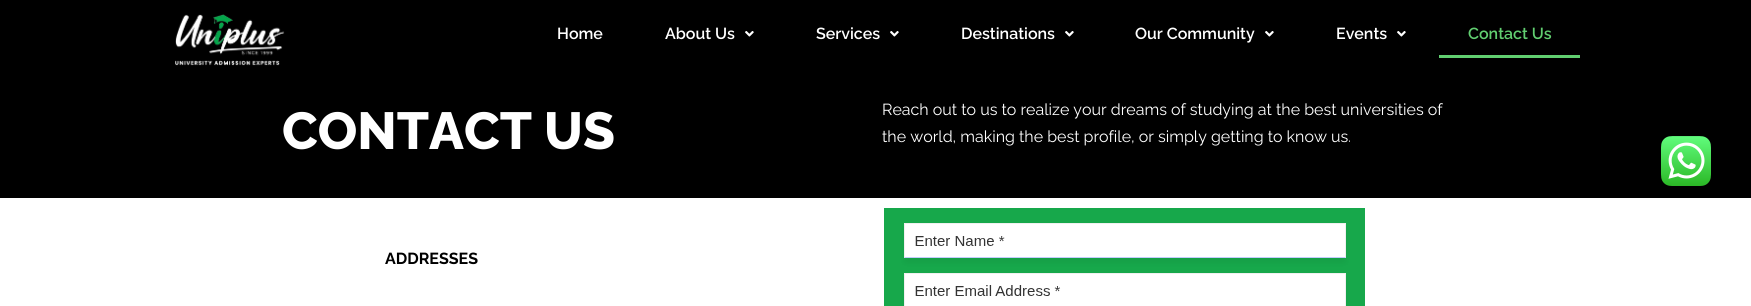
import math
import cairo

surface = cairo.ImageSurface(cairo.FORMAT_RGB24, 1751, 306)
ctx = cairo.Context(surface)
options = cairo.FontOptions()
options.set_hint_metrics(cairo.HINT_METRICS_OFF)
options.set_hint_style(cairo.HINT_STYLE_NONE)
ctx.set_font_options(options)
ctx.set_miter_limit(4)


def picture(path, x, y, w, h):
    ctx.save()
    ctx.set_source_surface(cairo.ImageSurface.create_from_png(path), x, y)
    ctx.rectangle(x, y, w, h)
    ctx.fill()
    ctx.restore()


ctx.set_source_rgb(1, 1, 1)
ctx.paint()
ctx.set_source_rgb(0, 0, 0)
ctx.rectangle(0, 0, 1751, 198)
ctx.fill()
picture("img1.png", 175, 14, 110, 52)
ctx.select_font_face("Raleway SemiBold")
ctx.set_font_size(16)
ctx.set_source_rgb(1, 1, 1)
ctx.move_to(557, 39)
ctx.show_text("Home")
ctx.move_to(665, 39)
ctx.show_text("About Us")
picture("img2.png", 745, 31, 9, 6)
ctx.move_to(816, 39)
ctx.show_text("Services")
picture("img2.png", 890, 31, 9, 6)
ctx.move_to(961, 39)
ctx.show_text("Destinations")
picture("img2.png", 1065, 31, 9, 6)
ctx.move_to(1135, 39)
ctx.show_text("Our Community")
picture("img2.png", 1265, 31, 9, 6)
ctx.move_to(1336, 39)
ctx.show_text("Events")
picture("img2.png", 1397, 31, 9, 6)
ctx.set_source_rgb(0.38, 0.808, 0.439)
ctx.move_to(1468, 39)
ctx.show_text("Contact Us")
ctx.rectangle(1439, 55, 141, 3)
ctx.fill()
ctx.select_font_face("Raleway ExtraBold")
ctx.set_font_size(52)
ctx.set_source_rgb(1, 1, 1)
ctx.move_to(282, 149)
ctx.show_text("CONTACT US")
ctx.select_font_face("Raleway")
ctx.set_font_size(16)
ctx.move_to(882, 115)
ctx.show_text("Reach out to us to realize your dreams of studying at the best universities of")
ctx.move_to(882, 142)
ctx.show_text("the world, making the best profile, or simply getting to know us.")
ctx.select_font_face("Raleway", cairo.FONT_SLANT_NORMAL, cairo.FONT_WEIGHT_BOLD)
ctx.set_source_rgb(0, 0, 0)
ctx.move_to(385, 264)
ctx.show_text("ADDRESSES")
picture("img3.png", 884, 208, 481, 98)
picture("img4.png", 1661, 136, 50, 50)
surface.write_to_png("page.png")
